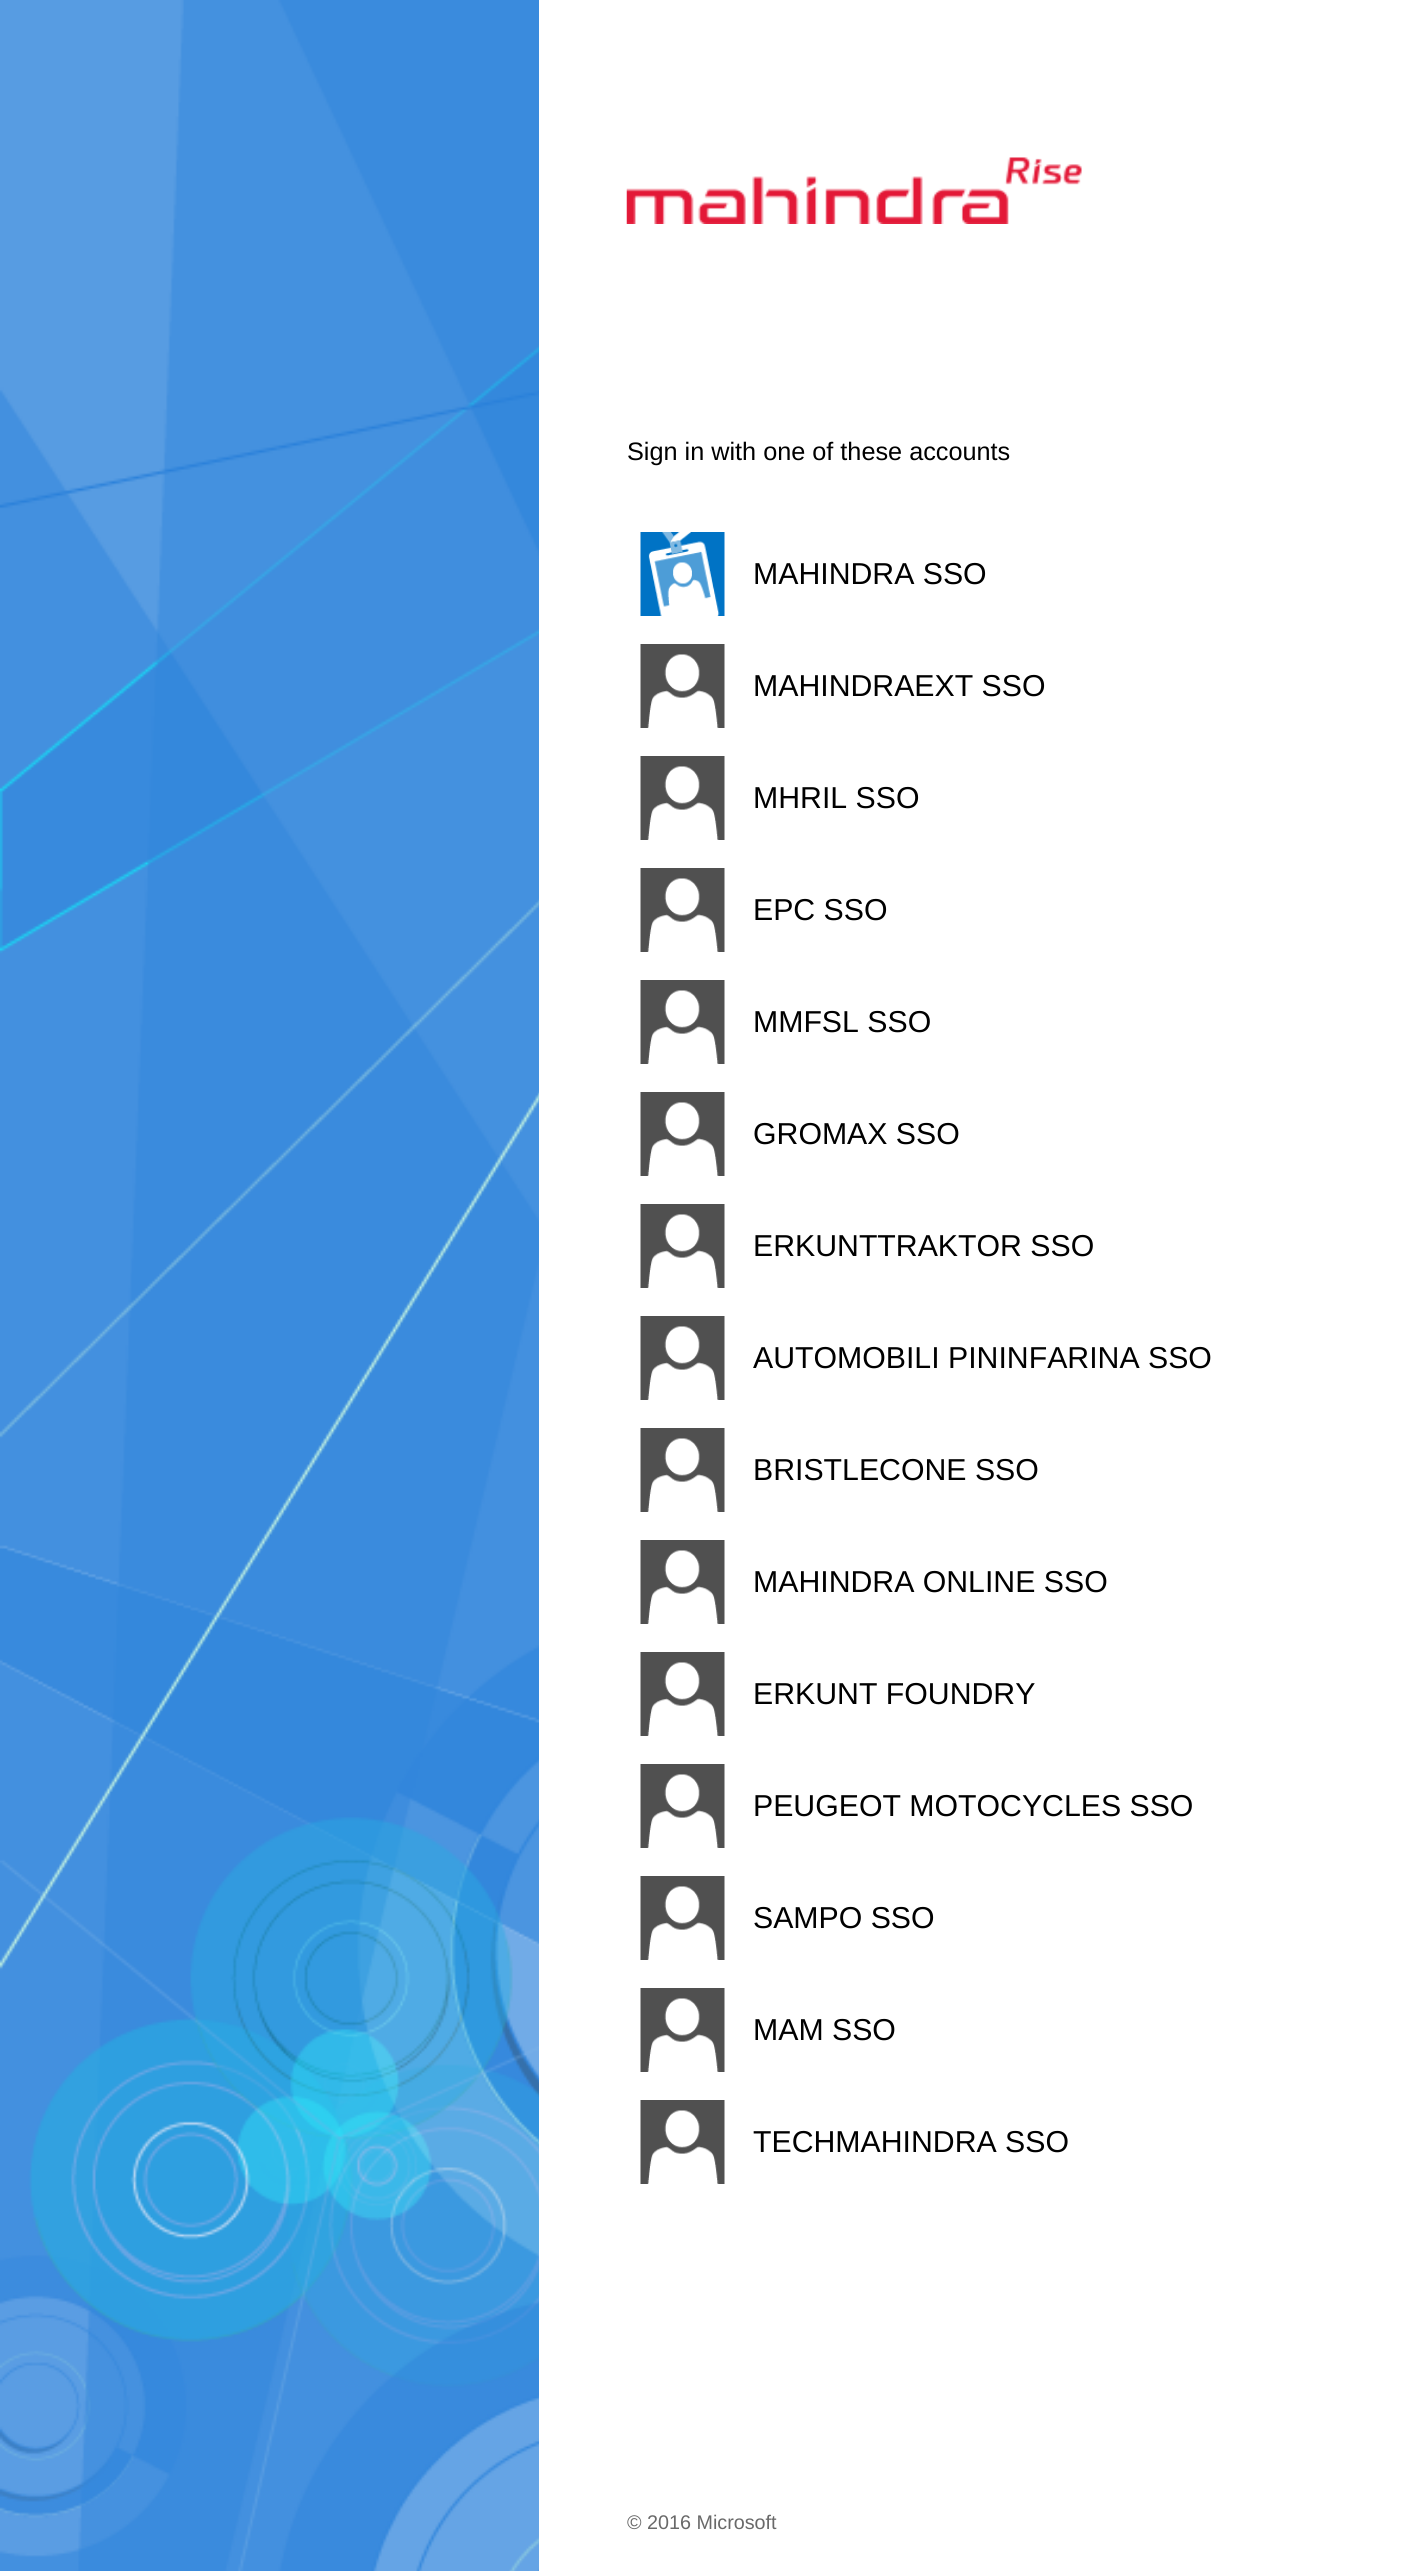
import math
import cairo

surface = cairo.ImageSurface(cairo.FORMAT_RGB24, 1414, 2571)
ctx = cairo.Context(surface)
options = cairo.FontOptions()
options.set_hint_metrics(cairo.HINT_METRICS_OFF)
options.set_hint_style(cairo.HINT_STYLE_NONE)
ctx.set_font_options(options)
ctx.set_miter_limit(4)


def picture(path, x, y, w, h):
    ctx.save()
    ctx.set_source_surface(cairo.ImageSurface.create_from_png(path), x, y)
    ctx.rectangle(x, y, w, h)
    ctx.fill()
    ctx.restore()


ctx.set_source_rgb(1, 1, 1)
ctx.paint()
picture("img1.png", 0, 0, 539, 2571)
picture("img2.png", 626, 157, 456, 67)
ctx.select_font_face("Liberation Sans")
ctx.set_font_size(25.25)
ctx.set_source_rgb(0, 0, 0)
ctx.move_to(627, 460)
ctx.show_text("Sign in with one of these accounts")
picture("img3.png", 640, 532, 85, 84)
ctx.set_font_size(30.25)
ctx.move_to(753, 584)
ctx.show_text("MAHINDRA SSO")
picture("img4.png", 640, 644, 85, 84)
ctx.move_to(753, 696)
ctx.show_text("MAHINDRAEXT SSO")
picture("img5.png", 640, 756, 85, 84)
ctx.move_to(753, 808)
ctx.show_text("MHRIL SSO")
picture("img4.png", 640, 868, 85, 84)
ctx.move_to(753, 920)
ctx.show_text("EPC SSO")
picture("img4.png", 640, 980, 85, 84)
ctx.move_to(753, 1032)
ctx.show_text("MMFSL SSO")
picture("img6.png", 640, 1092, 85, 84)
ctx.move_to(753, 1144)
ctx.show_text("GROMAX SSO")
picture("img4.png", 640, 1204, 85, 84)
ctx.move_to(753, 1256)
ctx.show_text("ERKUNTTRAKTOR SSO")
picture("img6.png", 640, 1316, 85, 84)
ctx.move_to(753, 1368)
ctx.show_text("AUTOMOBILI PININFARINA SSO")
picture("img4.png", 640, 1428, 85, 84)
ctx.move_to(753, 1480)
ctx.show_text("BRISTLECONE SSO")
picture("img7.png", 640, 1540, 85, 84)
ctx.move_to(753, 1592)
ctx.show_text("MAHINDRA ONLINE SSO")
picture("img4.png", 640, 1652, 85, 84)
ctx.move_to(753, 1704)
ctx.show_text("ERKUNT FOUNDRY")
picture("img6.png", 640, 1764, 85, 84)
ctx.move_to(753, 1816)
ctx.show_text("PEUGEOT MOTOCYCLES SSO")
picture("img4.png", 640, 1876, 85, 84)
ctx.move_to(753, 1928)
ctx.show_text("SAMPO SSO")
picture("img8.png", 640, 1988, 85, 84)
ctx.move_to(753, 2040)
ctx.show_text("MAM SSO")
picture("img7.png", 640, 2100, 85, 84)
ctx.move_to(753, 2152)
ctx.show_text("TECHMAHINDRA SSO")
ctx.set_font_size(19.75)
ctx.set_source_rgb(0.412, 0.412, 0.412)
ctx.move_to(627, 2529)
ctx.show_text("© 2016 Microsoft")
surface.write_to_png("page.png")
